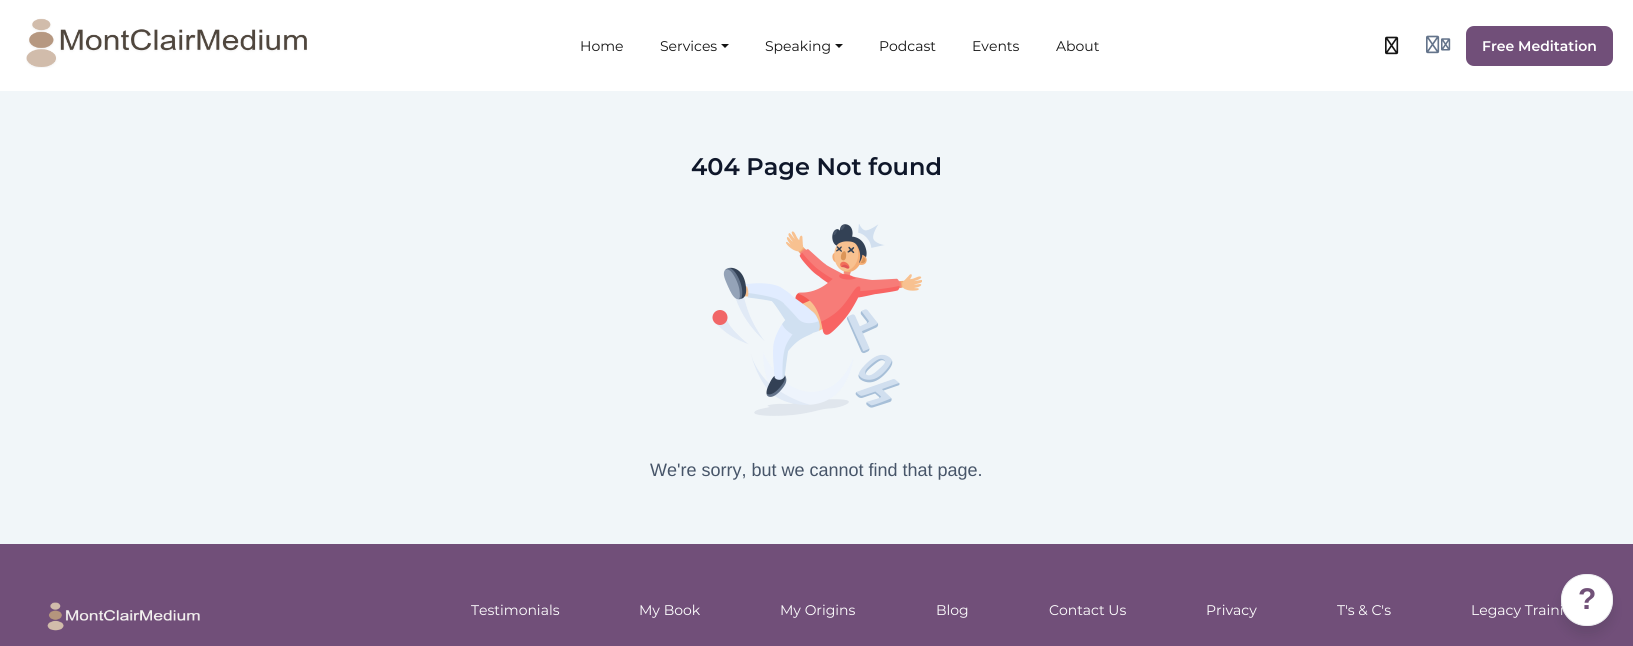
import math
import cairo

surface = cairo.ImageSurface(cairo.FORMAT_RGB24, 1633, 646)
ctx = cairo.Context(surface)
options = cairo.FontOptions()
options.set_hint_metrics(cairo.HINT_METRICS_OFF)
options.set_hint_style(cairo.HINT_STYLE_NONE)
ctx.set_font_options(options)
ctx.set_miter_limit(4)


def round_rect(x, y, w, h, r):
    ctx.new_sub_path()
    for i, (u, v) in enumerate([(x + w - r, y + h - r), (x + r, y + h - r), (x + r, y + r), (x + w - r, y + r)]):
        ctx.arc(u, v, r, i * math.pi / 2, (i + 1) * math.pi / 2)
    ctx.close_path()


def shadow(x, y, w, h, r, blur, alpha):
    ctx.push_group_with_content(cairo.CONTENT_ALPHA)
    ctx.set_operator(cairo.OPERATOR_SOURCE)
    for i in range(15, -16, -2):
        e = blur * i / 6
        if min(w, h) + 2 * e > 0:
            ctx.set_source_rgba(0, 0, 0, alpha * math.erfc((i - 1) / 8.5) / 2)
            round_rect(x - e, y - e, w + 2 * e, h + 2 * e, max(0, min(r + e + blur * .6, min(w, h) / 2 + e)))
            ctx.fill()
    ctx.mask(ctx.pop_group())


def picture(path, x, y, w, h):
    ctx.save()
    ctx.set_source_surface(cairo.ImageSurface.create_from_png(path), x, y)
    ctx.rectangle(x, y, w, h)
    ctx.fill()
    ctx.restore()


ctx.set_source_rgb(0.945, 0.961, 0.976)
ctx.paint()
ctx.set_source_rgb(1, 1, 1)
ctx.rectangle(0, 0, 1633, 91)
ctx.fill()
picture("img1.png", 26, 18, 281, 50)
ctx.select_font_face("Montserrat")
ctx.set_font_size(14)
ctx.set_source_rgb(0.082, 0.082, 0.082)
ctx.move_to(580, 51)
ctx.show_text("Home")
ctx.move_to(660, 51)
ctx.show_text("Services")
ctx.new_path()
ctx.move_to(721, 44)
ctx.line_to(729, 44)
ctx.line_to(725, 48)
ctx.close_path()
ctx.fill()
ctx.move_to(765, 51)
ctx.show_text("Speaking")
ctx.new_path()
ctx.move_to(835, 44)
ctx.line_to(843, 44)
ctx.line_to(839, 48)
ctx.close_path()
ctx.fill()
ctx.move_to(879, 51)
ctx.show_text("Podcast")
ctx.move_to(972, 51)
ctx.show_text("Events")
ctx.move_to(1056, 51)
ctx.show_text("About")
picture("img2.png", 1385, 36, 14, 19)
picture("img3.png", 1426, 35, 14, 19)
picture("img4.png", 1441, 38, 10, 13)
ctx.set_source_rgb(0.443, 0.31, 0.475)
round_rect(1466, 26, 147, 40, 8)
ctx.fill()
ctx.select_font_face("Montserrat SemiBold")
ctx.set_source_rgb(1, 1, 1)
ctx.move_to(1482, 51)
ctx.show_text("Free Meditation")
ctx.set_font_size(24)
ctx.set_source_rgb(0.059, 0.09, 0.165)
ctx.move_to(691, 175)
ctx.show_text("404 Page Not found")
picture("img5.png", 712, 224, 210, 192)
ctx.select_font_face("Liberation Sans")
ctx.set_font_size(18)
ctx.set_source_rgb(0.278, 0.333, 0.412)
ctx.move_to(650, 476)
ctx.show_text("We're sorry, but we cannot find that page.")
ctx.set_source_rgb(0.443, 0.31, 0.475)
ctx.rectangle(0, 544, 1633, 102)
ctx.fill()
picture("img6.png", 47, 602, 153, 29)
ctx.select_font_face("Montserrat")
ctx.set_font_size(14)
ctx.set_source_rgb(1, 1, 1)
ctx.move_to(471, 615)
ctx.show_text("Testimonials")
ctx.move_to(639, 615)
ctx.show_text("My Book")
ctx.move_to(780, 615)
ctx.show_text("My Origins")
ctx.move_to(936, 615)
ctx.show_text("Blog")
ctx.move_to(1049, 615)
ctx.show_text("Contact Us")
ctx.move_to(1206, 615)
ctx.show_text("Privacy")
ctx.move_to(1337, 615)
ctx.show_text("T's & C's")
ctx.move_to(1471, 615)
ctx.show_text("Legacy Traini")
ctx.set_source_rgb(0.133, 0.149, 0.184)
shadow(1561, 583, 52, 52, 25, 6, 0.15)
ctx.set_source_rgb(1, 1, 1)
round_rect(1561.5, 574.5, 51, 51, 24.5)
ctx.fill_preserve()
ctx.set_source_rgb(0.929, 0.933, 0.945)
ctx.set_line_width(1)
ctx.stroke()
ctx.select_font_face("Liberation Sans", cairo.FONT_SLANT_NORMAL, cairo.FONT_WEIGHT_BOLD)
ctx.set_font_size(30)
ctx.set_source_rgb(0.443, 0.318, 0.471)
ctx.move_to(1578, 609)
ctx.show_text("?")
surface.write_to_png("page.png")
